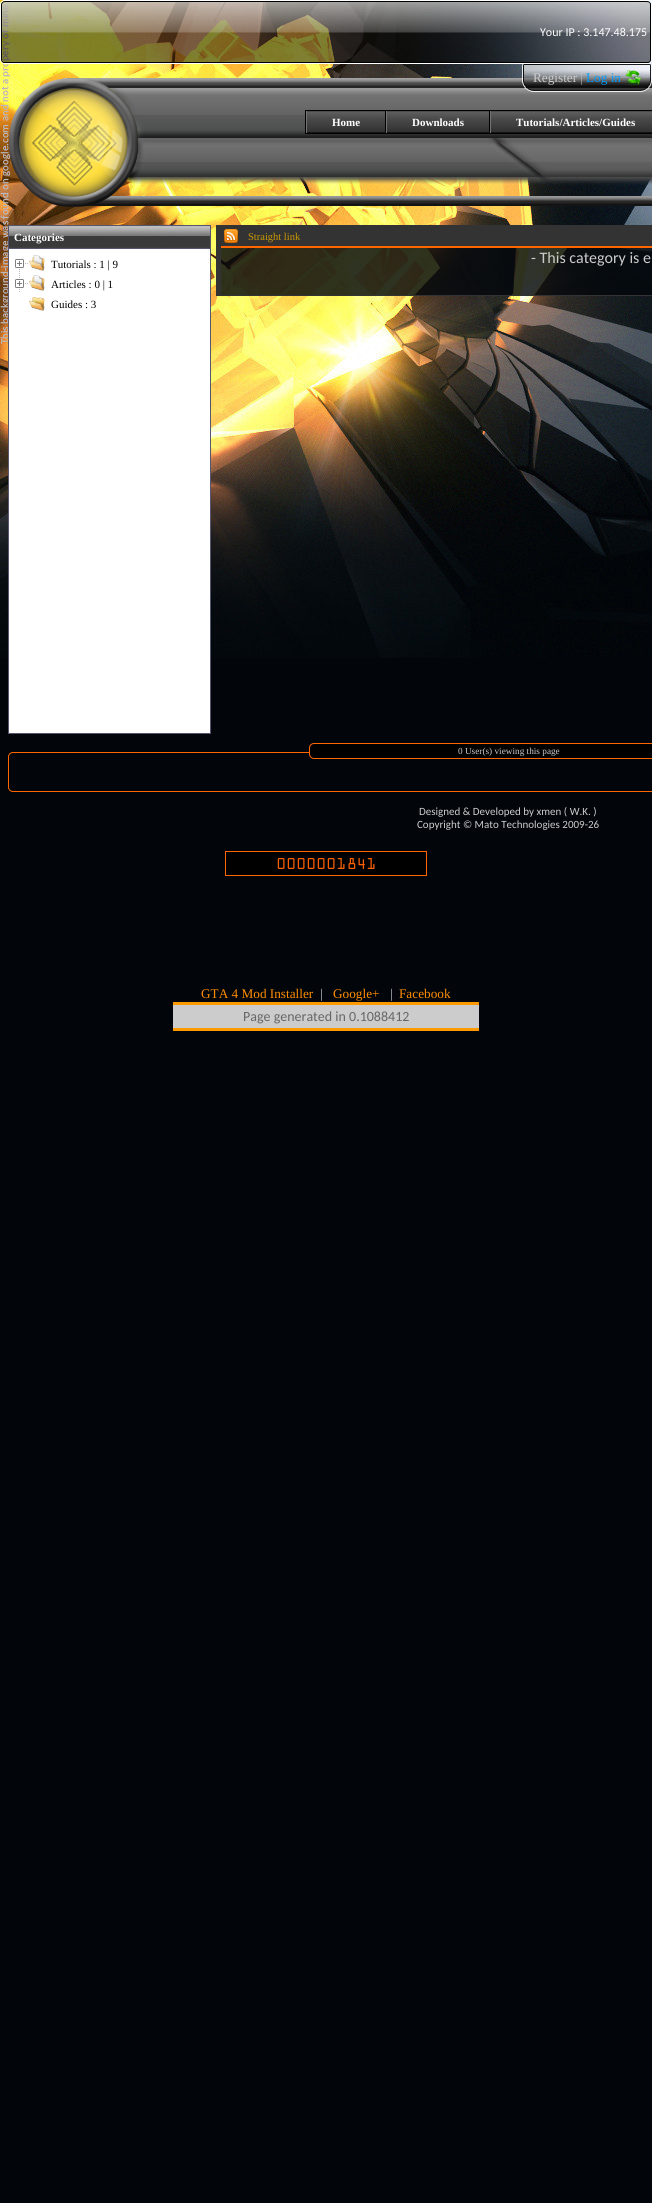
import math
import cairo

surface = cairo.ImageSurface(cairo.FORMAT_RGB24, 652, 2203)
ctx = cairo.Context(surface)
options = cairo.FontOptions()
options.set_hint_metrics(cairo.HINT_METRICS_OFF)
options.set_hint_style(cairo.HINT_STYLE_NONE)
ctx.set_font_options(options)
ctx.set_miter_limit(4)


def round_rect(x, y, w, h, r):
    ctx.new_sub_path()
    for i, (u, v) in enumerate([(x + w - r, y + h - r), (x + r, y + h - r), (x + r, y + r), (x + w - r, y + r)]):
        ctx.arc(u, v, r, i * math.pi / 2, (i + 1) * math.pi / 2)
    ctx.close_path()


def picture(path, x, y, w, h):
    ctx.save()
    ctx.set_source_surface(cairo.ImageSurface.create_from_png(path), x, y)
    ctx.rectangle(x, y, w, h)
    ctx.fill()
    ctx.restore()


ctx.set_source_rgb(0.008, 0.027, 0.043)
ctx.paint()
picture("img1.png", 0, 0, 652, 658)
picture("img2.png", 0, 0, 5, 64)
picture("img3.png", 5, 0, 642, 64)
ctx.select_font_face("Carlito")
ctx.set_font_size(12)
ctx.set_source_rgb(1, 1, 1)
ctx.move_to(540, 36)
ctx.show_text("Your IP : 3.147.48.175")
picture("img4.png", 647, 0, 5, 64)
picture("img9.png", 9, 78, 643, 129)
picture("img5.png", 522, 64, 11, 28)
picture("img6.png", 533, 64, 108, 28)
ctx.select_font_face("Liberation Serif")
ctx.set_font_size(13.25)
ctx.set_source_rgb(0.8, 0.8, 0.8)
ctx.move_to(533, 82)
ctx.show_text("Register |")
ctx.set_source_rgb(0, 0.6, 1)
ctx.move_to(586, 82)
ctx.show_text("Log in")
picture("img7.png", 625, 70, 16, 16)
picture("img8.png", 641, 63, 11, 29)
picture("img10.png", 307, 112, 345, 20)
ctx.rectangle(305.5, 110.5, 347, 23)
ctx.set_source_rgb(0, 0, 0)
ctx.set_line_width(1)
ctx.stroke()
ctx.set_source_rgb(0.298, 0.298, 0.298)
ctx.rectangle(306, 111, 346, 1)
ctx.fill()
ctx.set_source_rgb(0, 0, 0)
ctx.rectangle(385, 111, 1, 22)
ctx.fill()
ctx.set_source_rgb(0.075, 0.078, 0.075)
ctx.rectangle(306, 132, 80, 1)
ctx.fill()
ctx.set_source_rgb(0.451, 0.451, 0.451)
ctx.rectangle(306, 111, 1, 22)
ctx.fill()
ctx.select_font_face("Liberation Serif", cairo.FONT_SLANT_NORMAL, cairo.FONT_WEIGHT_BOLD)
ctx.set_font_size(11)
ctx.set_source_rgb(1, 1, 1)
ctx.move_to(332, 126)
ctx.show_text("Home")
ctx.set_source_rgb(0, 0, 0)
ctx.rectangle(489, 111, 1, 22)
ctx.fill()
ctx.set_source_rgb(0.075, 0.078, 0.075)
ctx.rectangle(386, 132, 266, 1)
ctx.fill()
ctx.set_source_rgb(0.451, 0.451, 0.451)
ctx.rectangle(386, 111, 1, 22)
ctx.fill()
ctx.set_source_rgb(1, 1, 1)
ctx.move_to(412, 126)
ctx.show_text("Downloads")
ctx.set_source_rgb(0.451, 0.451, 0.451)
ctx.rectangle(490, 111, 1, 22)
ctx.fill()
ctx.set_source_rgb(1, 1, 1)
ctx.move_to(516, 126)
ctx.show_text("Tutorials/Articles/Guides")
picture("img11.png", 9, 226, 201, 22)
ctx.set_source_rgb(0.341, 0.337, 0.435)
ctx.rectangle(8, 225, 203, 1)
ctx.fill()
ctx.rectangle(210, 225, 1, 23)
ctx.fill()
ctx.rectangle(8, 225, 1, 23)
ctx.fill()
ctx.set_source_rgb(1, 1, 1)
ctx.move_to(14, 241)
ctx.show_text("Categories")
ctx.rectangle(8.5, 248.5, 202, 485)
ctx.fill_preserve()
ctx.set_source_rgb(0.341, 0.337, 0.435)
ctx.stroke()
picture("img12.png", 15, 259, 13, 13)
picture("img13.png", 29, 255, 16, 16)
ctx.select_font_face("Liberation Serif")
ctx.set_source_rgb(0, 0, 0)
ctx.move_to(51, 268)
ctx.show_text("Tutorials : 1 | 9")
picture("img14.png", 15, 273, 13, 19)
picture("img13.png", 29, 275, 16, 16)
ctx.move_to(51, 288)
ctx.show_text("Articles : 0 | 1")
picture("img15.png", 29, 297, 16, 14)
ctx.move_to(51, 308)
ctx.show_text("Guides : 3")
ctx.set_source_rgba(0.008, 0.027, 0.043, 0.82)
ctx.rectangle(221, 248, 431, 47)
ctx.fill()
ctx.set_source_rgb(0.2, 0.2, 0.2)
ctx.rectangle(216, 225, 436, 1)
ctx.fill()
ctx.rectangle(216, 295, 436, 1)
ctx.fill()
ctx.rectangle(216, 225, 5, 71)
ctx.fill()
ctx.rectangle(221, 226, 431, 20)
ctx.fill()
ctx.set_source_rgb(1, 0.4, 0)
ctx.rectangle(221, 246, 431, 2)
ctx.fill()
picture("img16.png", 224, 229, 14, 14)
ctx.set_font_size(10.5)
ctx.set_source_rgb(0.8, 0.6, 0)
ctx.move_to(248, 240)
ctx.show_text("Straight link")
ctx.select_font_face("Carlito")
ctx.set_font_size(16)
ctx.set_source_rgb(0.8, 0.8, 0.8)
ctx.move_to(531, 263)
ctx.show_text("- This category is e")
round_rect(8.5, 752.5, 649, 39, 4.5)
ctx.set_source_rgb(1, 0.4, 0)
ctx.stroke()
ctx.set_source_rgb(0, 0, 0)
round_rect(309.5, 743.5, 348, 15, 4.5)
ctx.fill_preserve()
ctx.set_source_rgb(1, 0.4, 0)
ctx.stroke()
ctx.select_font_face("Liberation Serif")
ctx.set_font_size(9.25)
ctx.set_source_rgb(0.8, 0.8, 0.8)
ctx.move_to(458, 754)
ctx.show_text("0 User(s) viewing this page")
ctx.select_font_face("Carlito")
ctx.set_font_size(11)
ctx.move_to(419, 815)
ctx.show_text("Designed & Developed by xmen ( W.K. )")
ctx.move_to(417, 828)
ctx.show_text("Copyright © Mato Technologies 2009-26")
ctx.set_source_rgb(0, 0, 0)
ctx.rectangle(225.5, 851.5, 201, 24)
ctx.fill_preserve()
ctx.set_source_rgb(1, 0.4, 0)
ctx.stroke()
picture("img17.png", 277, 858, 8, 11)
picture("img17.png", 287, 858, 8, 11)
picture("img17.png", 297, 858, 8, 11)
picture("img17.png", 307, 858, 8, 11)
picture("img17.png", 317, 858, 8, 11)
picture("img17.png", 327, 858, 8, 11)
picture("img18.png", 337, 858, 8, 11)
picture("img19.png", 348, 858, 8, 11)
picture("img20.png", 358, 858, 7, 11)
picture("img18.png", 367, 858, 8, 11)
ctx.select_font_face("Liberation Serif")
ctx.set_font_size(13.25)
ctx.set_source_rgb(1, 0.549, 0)
ctx.move_to(201, 998)
ctx.show_text("GTA 4 Mod Installer")
ctx.set_source_rgb(0.8, 0.8, 0.8)
ctx.move_to(320, 998)
ctx.show_text("|")
ctx.set_source_rgb(1, 0.549, 0)
ctx.move_to(333, 998)
ctx.show_text("Google+")
ctx.set_source_rgb(0.8, 0.8, 0.8)
ctx.move_to(390, 998)
ctx.show_text("|")
ctx.set_source_rgb(1, 0.549, 0)
ctx.move_to(399, 998)
ctx.show_text("Facebook")
ctx.set_source_rgb(0.8, 0.8, 0.8)
ctx.rectangle(173, 1005, 306, 23)
ctx.fill()
ctx.set_source_rgb(1, 0.6, 0)
ctx.rectangle(173, 1002, 306, 3)
ctx.fill()
ctx.rectangle(173, 1028, 306, 3)
ctx.fill()
ctx.select_font_face("Carlito")
ctx.set_font_size(14)
ctx.set_source_rgb(0.4, 0.4, 0.4)
ctx.move_to(243, 1021)
ctx.show_text("Page generated in 0.1088412")
surface.write_to_png("page.png")
